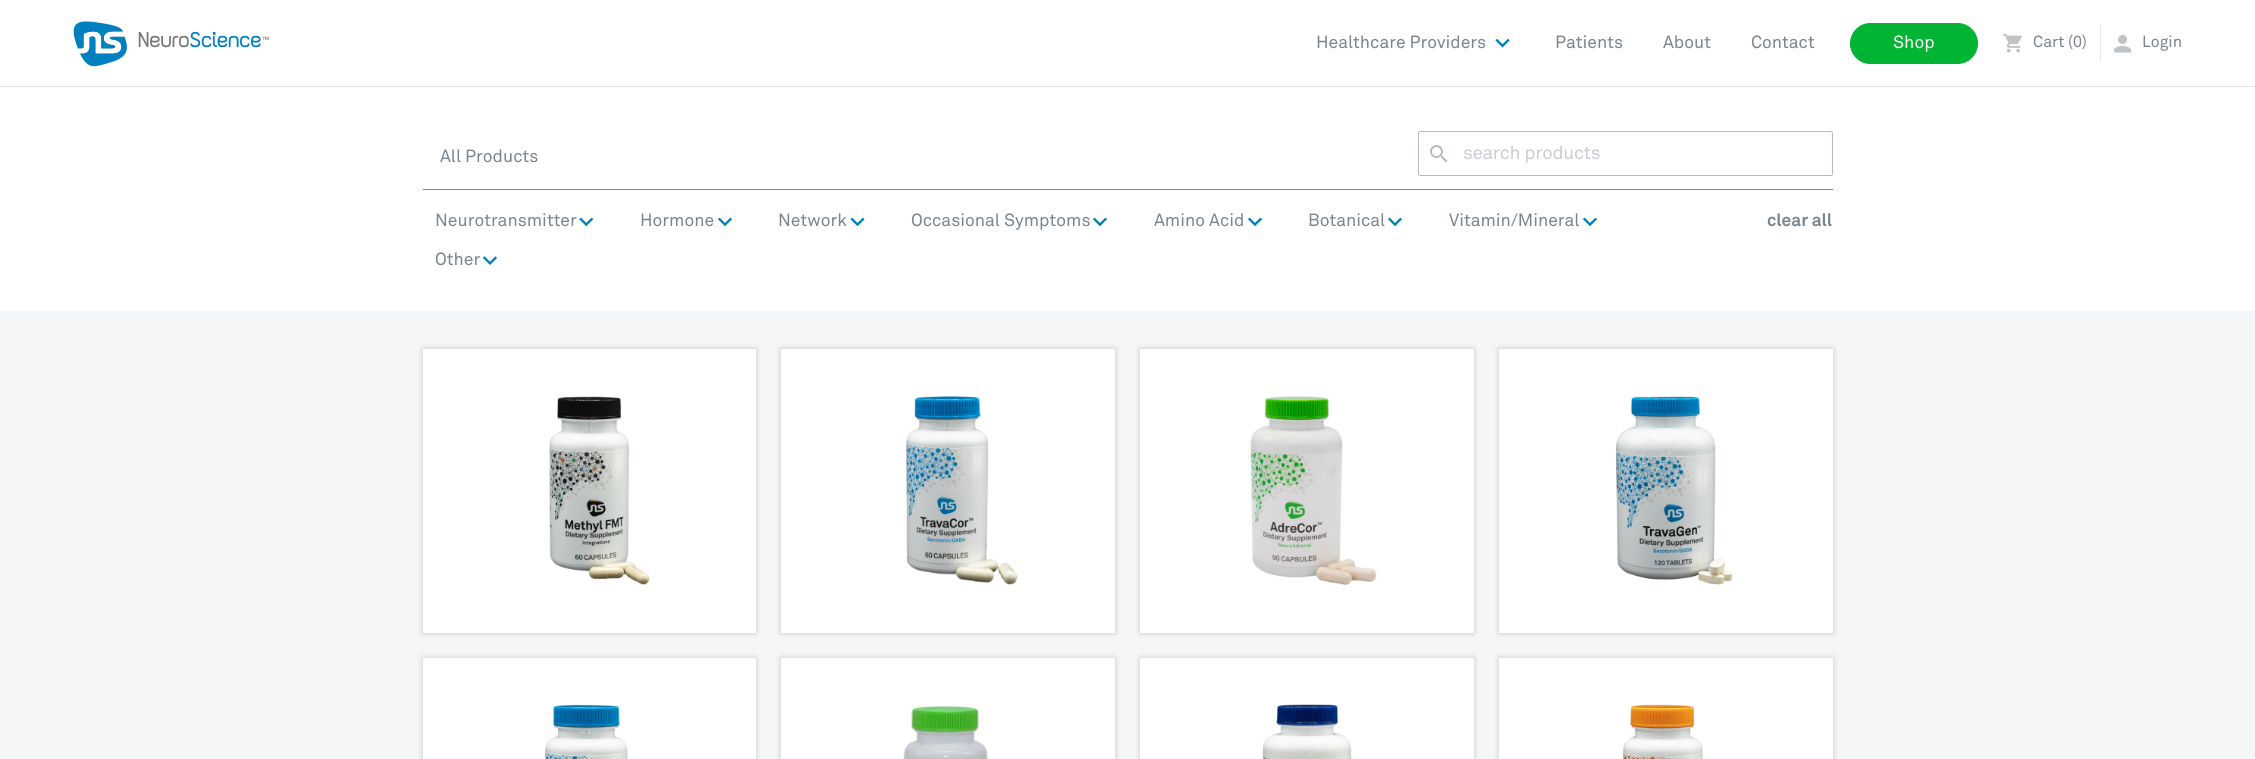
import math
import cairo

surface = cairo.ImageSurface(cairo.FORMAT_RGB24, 2255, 759)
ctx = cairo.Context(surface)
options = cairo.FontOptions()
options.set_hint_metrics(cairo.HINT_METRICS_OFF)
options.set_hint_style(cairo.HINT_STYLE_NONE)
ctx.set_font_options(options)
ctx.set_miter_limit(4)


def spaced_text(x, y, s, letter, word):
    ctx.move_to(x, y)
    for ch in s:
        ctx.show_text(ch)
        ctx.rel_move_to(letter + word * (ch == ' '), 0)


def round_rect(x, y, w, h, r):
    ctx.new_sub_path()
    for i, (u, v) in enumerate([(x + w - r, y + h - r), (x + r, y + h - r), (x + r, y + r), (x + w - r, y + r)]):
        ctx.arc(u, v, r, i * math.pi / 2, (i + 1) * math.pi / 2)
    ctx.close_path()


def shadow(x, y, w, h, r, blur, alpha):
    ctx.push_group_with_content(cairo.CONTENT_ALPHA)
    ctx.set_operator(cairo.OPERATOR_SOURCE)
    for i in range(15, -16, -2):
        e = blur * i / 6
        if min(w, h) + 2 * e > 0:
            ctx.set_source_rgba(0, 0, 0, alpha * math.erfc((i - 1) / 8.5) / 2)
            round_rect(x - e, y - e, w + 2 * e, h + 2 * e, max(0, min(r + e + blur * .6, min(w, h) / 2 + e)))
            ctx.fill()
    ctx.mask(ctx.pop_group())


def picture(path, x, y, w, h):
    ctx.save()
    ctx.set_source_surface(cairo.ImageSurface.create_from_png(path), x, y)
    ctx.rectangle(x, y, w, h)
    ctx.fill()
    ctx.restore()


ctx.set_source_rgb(1, 1, 1)
ctx.paint()
ctx.set_source_rgb(0.898, 0.906, 0.91)
ctx.rectangle(0, 86, 2255, 1)
ctx.fill()
picture("img1.png", 73, 21, 196, 46)
ctx.select_font_face("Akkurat")
ctx.set_font_size(17.5)
ctx.set_source_rgb(0.482, 0.522, 0.557)
ctx.move_to(1316, 48)
ctx.show_text("Healthcare Providers")
picture("img2.png", 1495, 39, 15, 9)
ctx.move_to(1555, 48)
ctx.show_text("Patients")
ctx.move_to(1663, 48)
ctx.show_text("About")
ctx.move_to(1751, 48)
ctx.show_text("Contact")
ctx.set_source_rgb(0.004, 0.706, 0.2)
round_rect(1850.5, 23.5, 127, 40, 20)
ctx.fill_preserve()
ctx.set_line_width(1)
ctx.stroke()
ctx.set_source_rgb(1, 1, 1)
ctx.move_to(1893, 48)
ctx.show_text("Shop")
ctx.set_source_rgb(0.898, 0.906, 0.91)
ctx.rectangle(2100, 25, 1, 36)
ctx.fill()
picture("img3.png", 2003, 34, 19, 19)
ctx.set_font_size(16)
ctx.set_source_rgb(0.482, 0.522, 0.557)
ctx.move_to(2033, 47)
ctx.show_text("Cart (0)")
picture("img4.png", 2114, 35, 17, 18)
ctx.move_to(2142, 47)
ctx.show_text("Login")
ctx.rectangle(423, 189, 1410, 1)
ctx.fill()
ctx.set_font_size(17.5)
ctx.move_to(440, 162)
ctx.show_text("All Products")
round_rect(1418.5, 131.5, 414, 44, 2)
ctx.set_source_rgb(0.702, 0.729, 0.773)
ctx.stroke()
picture("img5.png", 1430, 145, 18, 18)
ctx.set_font_size(18.75)
ctx.set_source_rgb(0.792, 0.808, 0.824)
spaced_text(1463, 159, "search products", -0.25, 0)
ctx.set_font_size(17.5)
ctx.set_source_rgb(0.482, 0.522, 0.557)
ctx.move_to(435, 226)
ctx.show_text("Neurotransmitter")
picture("img6.png", 579, 218, 15, 8)
ctx.move_to(640, 226)
ctx.show_text("Hormone")
picture("img7.png", 718, 218, 14, 8)
ctx.move_to(778, 226)
ctx.show_text("Network")
picture("img8.png", 850, 218, 15, 8)
ctx.move_to(911, 226)
ctx.show_text("Occasional Symptoms")
picture("img7.png", 1093, 218, 14, 8)
ctx.move_to(1154, 226)
ctx.show_text("Amino Acid")
picture("img7.png", 1248, 218, 14, 8)
ctx.move_to(1308, 226)
ctx.show_text("Botanical")
picture("img7.png", 1388, 218, 14, 8)
ctx.move_to(1449, 226)
ctx.show_text("Vitamin/Mineral")
picture("img7.png", 1583, 218, 14, 8)
ctx.move_to(435, 265)
ctx.show_text("Other")
picture("img9.png", 483, 256, 14, 9)
ctx.select_font_face("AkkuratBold", cairo.FONT_SLANT_NORMAL, cairo.FONT_WEIGHT_BOLD)
ctx.move_to(1767, 226)
ctx.show_text("clear all")
ctx.set_source_rgb(0.957, 0.961, 0.969)
ctx.rectangle(0, 311, 2255, 448)
ctx.fill()
ctx.set_source_rgb(0, 0, 0)
shadow(423, 349, 333, 284, 0, 3, 0.2)
ctx.set_source_rgb(1, 1, 1)
ctx.rectangle(423, 349, 333, 284)
ctx.fill()
picture("img10.png", 549, 396, 101, 189)
ctx.set_source_rgb(0, 0, 0)
shadow(781, 349, 334, 284, 0, 3, 0.2)
ctx.set_source_rgb(1, 1, 1)
ctx.rectangle(781, 349, 334, 284)
ctx.fill()
picture("img11.png", 906, 396, 112, 189)
ctx.set_source_rgb(0, 0, 0)
shadow(1140, 349, 334, 284, 0, 3, 0.2)
ctx.set_source_rgb(1, 1, 1)
ctx.rectangle(1140, 349, 334, 284)
ctx.fill()
picture("img12.png", 1250, 396, 127, 189)
ctx.set_source_rgb(0, 0, 0)
shadow(1499, 349, 334, 284, 0, 3, 0.2)
ctx.set_source_rgb(1, 1, 1)
ctx.rectangle(1499, 349, 334, 284)
ctx.fill()
picture("img13.png", 1615, 396, 118, 189)
ctx.set_source_rgb(0, 0, 0)
shadow(423, 658, 333, 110, 0, 3, 0.2)
ctx.set_source_rgb(1, 1, 1)
ctx.rectangle(423, 658, 333, 101)
ctx.fill()
picture("img14.png", 545, 704, 83, 55)
ctx.set_source_rgb(0, 0, 0)
shadow(781, 658, 334, 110, 0, 3, 0.2)
ctx.set_source_rgb(1, 1, 1)
ctx.rectangle(781, 658, 334, 101)
ctx.fill()
picture("img15.png", 903, 705, 85, 54)
ctx.set_source_rgb(0, 0, 0)
shadow(1140, 658, 334, 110, 0, 3, 0.2)
ctx.set_source_rgb(1, 1, 1)
ctx.rectangle(1140, 658, 334, 101)
ctx.fill()
picture("img16.png", 1262, 704, 90, 55)
ctx.set_source_rgb(0, 0, 0)
shadow(1499, 658, 334, 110, 0, 3, 0.2)
ctx.set_source_rgb(1, 1, 1)
ctx.rectangle(1499, 658, 334, 101)
ctx.fill()
picture("img17.png", 1622, 704, 81, 55)
surface.write_to_png("page.png")
